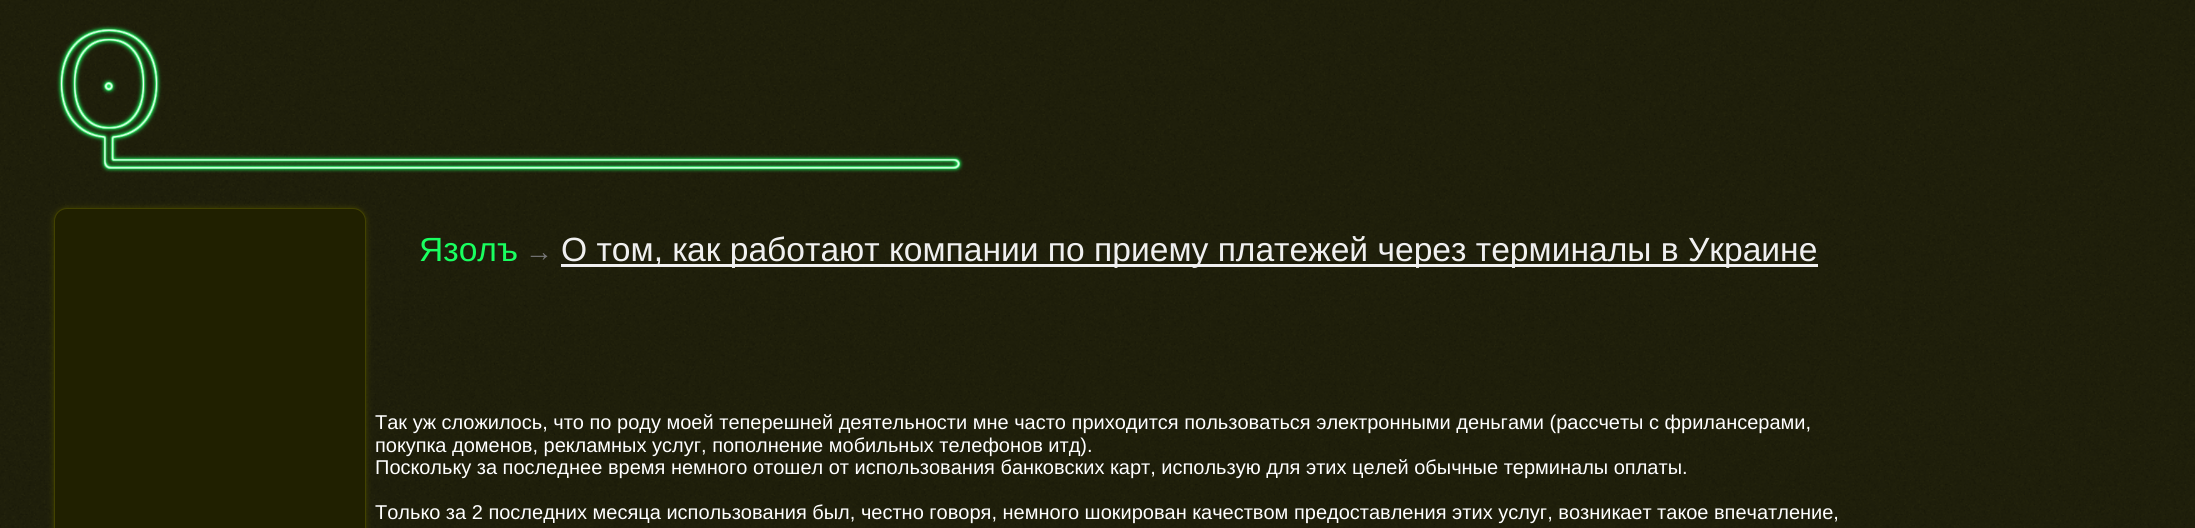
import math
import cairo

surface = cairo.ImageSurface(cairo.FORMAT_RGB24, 2195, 528)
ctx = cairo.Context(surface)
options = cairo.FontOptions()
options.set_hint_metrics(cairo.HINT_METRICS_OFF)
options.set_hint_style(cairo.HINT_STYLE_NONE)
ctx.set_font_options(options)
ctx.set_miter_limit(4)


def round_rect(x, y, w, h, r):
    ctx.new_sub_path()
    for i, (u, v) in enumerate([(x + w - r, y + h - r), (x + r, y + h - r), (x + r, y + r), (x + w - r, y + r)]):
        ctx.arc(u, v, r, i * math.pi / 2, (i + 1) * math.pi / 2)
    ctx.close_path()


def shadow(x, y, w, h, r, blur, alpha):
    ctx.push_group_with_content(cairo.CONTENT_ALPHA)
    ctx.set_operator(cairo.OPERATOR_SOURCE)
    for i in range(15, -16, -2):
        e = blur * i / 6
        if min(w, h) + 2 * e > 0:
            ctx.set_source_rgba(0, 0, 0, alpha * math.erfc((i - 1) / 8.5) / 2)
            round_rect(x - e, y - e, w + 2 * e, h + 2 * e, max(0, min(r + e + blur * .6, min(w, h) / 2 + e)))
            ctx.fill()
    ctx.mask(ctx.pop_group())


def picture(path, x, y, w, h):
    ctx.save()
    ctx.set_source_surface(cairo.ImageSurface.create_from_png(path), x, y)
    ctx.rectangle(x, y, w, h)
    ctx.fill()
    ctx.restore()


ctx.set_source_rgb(1, 1, 1)
ctx.paint()
picture("img1.png", 0, 0, 2195, 528)
picture("img2.png", 56, 25, 908, 148)
ctx.set_source_rgb(0.259, 0.259, 0)
shadow(54, 208, 312, 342, 13, 3, 1)
ctx.set_source_rgb(0.125, 0.125, 0)
round_rect(54.5, 208.5, 311, 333, 12.5)
ctx.fill_preserve()
ctx.set_source_rgb(0.259, 0.259, 0)
ctx.set_line_width(1)
ctx.stroke()
ctx.select_font_face("Liberation Sans")
ctx.set_font_size(33.6)
ctx.set_source_rgb(0.098, 1, 0.376)
ctx.move_to(419, 261)
ctx.show_text("Язолъ")
ctx.set_font_size(28)
ctx.set_source_rgb(0.463, 0.463, 0.463)
ctx.move_to(525, 261)
ctx.show_text("→")
ctx.set_source_rgb(0.941, 0.941, 0.941)
ctx.rectangle(561, 264, 1257, 3)
ctx.fill()
ctx.set_font_size(33.6)
ctx.move_to(561, 261)
ctx.show_text("О том, как работают компании по приему платежей через терминалы в Украине")
ctx.set_font_size(20)
ctx.set_source_rgb(1, 1, 1)
ctx.move_to(375, 429)
ctx.show_text("Так уж сложилось, что по роду моей теперешней деятельности мне часто приходится пользоваться электронными деньгами (рассчеты с фрилансерами,")
ctx.move_to(375, 452)
ctx.show_text("покупка доменов, рекламных услуг, пополнение мобильных телефонов итд).")
ctx.move_to(375, 474)
ctx.show_text("Поскольку за последнее время немного отошел от использования банковских карт, использую для этих целей обычные терминалы оплаты.")
ctx.move_to(375, 519)
ctx.show_text("Только за 2 последних месяца использования был, честно говоря, немного шокирован качеством предоставления этих услуг, возникает такое впечатление,")
surface.write_to_png("page.png")
